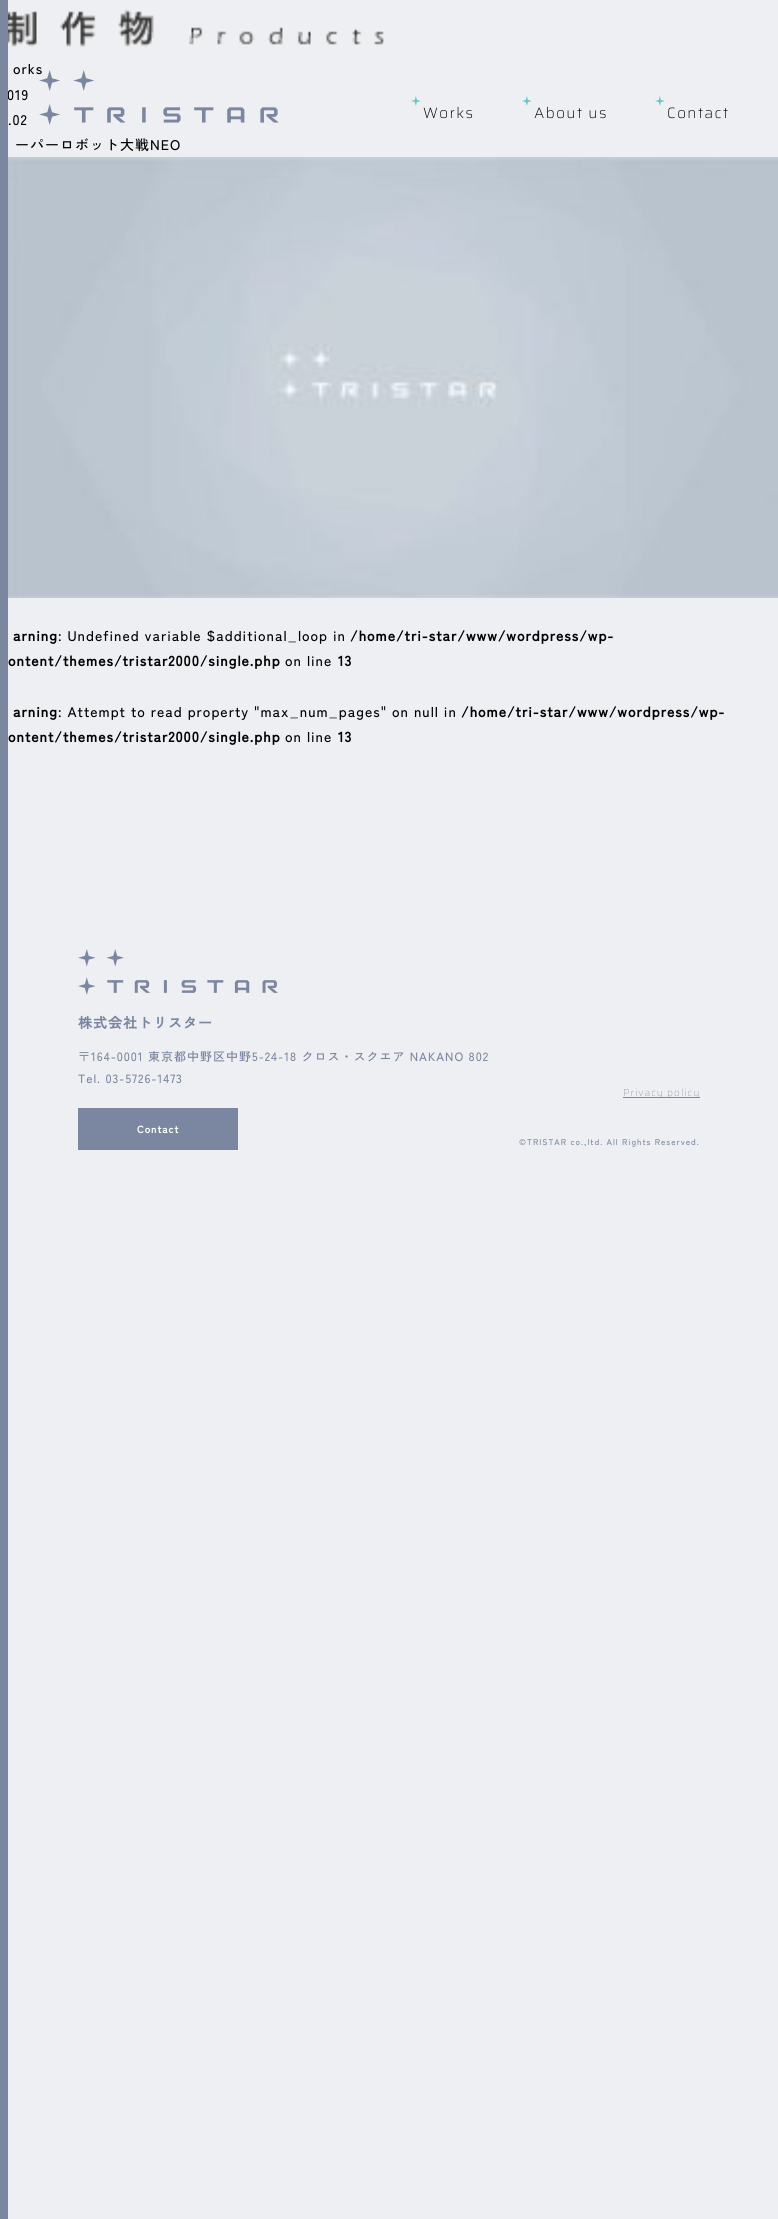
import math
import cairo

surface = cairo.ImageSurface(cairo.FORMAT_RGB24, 778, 2219)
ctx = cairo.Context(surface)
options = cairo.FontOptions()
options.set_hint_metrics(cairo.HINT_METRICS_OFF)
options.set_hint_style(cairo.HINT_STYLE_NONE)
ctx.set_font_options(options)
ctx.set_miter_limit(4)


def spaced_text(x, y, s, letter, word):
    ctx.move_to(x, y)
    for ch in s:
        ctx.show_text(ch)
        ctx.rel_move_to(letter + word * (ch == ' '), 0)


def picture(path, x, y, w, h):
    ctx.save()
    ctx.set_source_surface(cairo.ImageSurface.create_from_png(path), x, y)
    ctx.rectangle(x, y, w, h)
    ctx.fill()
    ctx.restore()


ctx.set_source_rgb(0.929, 0.937, 0.949)
ctx.paint()
ctx.select_font_face("Zen Kaku Gothic New Medium")
ctx.set_font_size(14)
ctx.set_source_rgb(0, 0, 0)
spaced_text(7, 100, "019", 1, 0)
ctx.set_source_rgb(0.482, 0.529, 0.627)
ctx.rectangle(0, 0, 8, 2219)
ctx.fill()
picture("img1.png", 8, 9, 376, 38)
ctx.set_source_rgb(0, 0, 0)
spaced_text(13, 74, "orks", 1, 0)
spaced_text(8, 125, ".02", 1, 0)
spaced_text(15, 150, "ーパーロボット大戦NEO", 1, 0)
picture("img2.png", 8, 157, 770, 441)
ctx.select_font_face("Zen Kaku Gothic New", cairo.FONT_SLANT_NORMAL, cairo.FONT_WEIGHT_BOLD)
spaced_text(13, 641, "arning", 1, 0)
ctx.select_font_face("Zen Kaku Gothic New Medium")
spaced_text(58, 641, ": Undefined variable $additional_loop in", 1, 0)
ctx.select_font_face("Zen Kaku Gothic New", cairo.FONT_SLANT_NORMAL, cairo.FONT_WEIGHT_BOLD)
spaced_text(350, 641, "/home/tri-star/www/wordpress/wp-", 1, 0)
spaced_text(8, 666, "ontent/themes/tristar2000/single.php", 1, 0)
ctx.select_font_face("Zen Kaku Gothic New Medium")
spaced_text(285, 666, "on line", 1, 0)
ctx.select_font_face("Zen Kaku Gothic New", cairo.FONT_SLANT_NORMAL, cairo.FONT_WEIGHT_BOLD)
spaced_text(338, 666, "13", 1, 0)
spaced_text(13, 717, "arning", 1, 0)
ctx.select_font_face("Zen Kaku Gothic New Medium")
spaced_text(58, 717, ": Attempt to read property \"max_num_pages\" on null in", 1, 0)
ctx.select_font_face("Zen Kaku Gothic New", cairo.FONT_SLANT_NORMAL, cairo.FONT_WEIGHT_BOLD)
spaced_text(461, 717, "/home/tri-star/www/wordpress/wp-", 1, 0)
spaced_text(8, 742, "ontent/themes/tristar2000/single.php", 1, 0)
ctx.select_font_face("Zen Kaku Gothic New Medium")
spaced_text(285, 742, "on line", 1, 0)
ctx.select_font_face("Zen Kaku Gothic New", cairo.FONT_SLANT_NORMAL, cairo.FONT_WEIGHT_BOLD)
spaced_text(338, 742, "13", 1, 0)
picture("img3.png", 39, 70, 240, 55)
picture("img4.png", 411, 96, 10, 10)
ctx.select_font_face("Saira ExtraLight")
ctx.set_font_size(15)
spaced_text(423, 118, "Works", 1.5, 0)
picture("img5.png", 522, 96, 9, 10)
spaced_text(534, 118, "About us", 1.5, 0)
picture("img5.png", 655, 96, 9, 10)
spaced_text(667, 118, "Contact", 1.5, 0)
picture("img6.png", 78, 949, 200, 46)
ctx.select_font_face("Zen Kaku Gothic New", cairo.FONT_SLANT_NORMAL, cairo.FONT_WEIGHT_BOLD)
ctx.set_font_size(14)
ctx.set_source_rgb(0.482, 0.529, 0.627)
spaced_text(78, 1028, "株式会社トリスター", 1, 0)
ctx.select_font_face("Zen Kaku Gothic New Medium")
ctx.set_font_size(12)
spaced_text(78, 1061, "〒164-0001 東京都中野区中野5-24-18 クロス・スクエア NAKANO 802", 1, 0)
spaced_text(78, 1083, "Tel. 03-5726-1473", 1, 0)
ctx.rectangle(78, 1108, 160, 42)
ctx.fill()
ctx.select_font_face("Zen Kaku Gothic New", cairo.FONT_SLANT_NORMAL, cairo.FONT_WEIGHT_BOLD)
ctx.set_font_size(10)
ctx.set_source_rgb(1, 1, 1)
spaced_text(137, 1133, "Contact", 1, 0)
ctx.set_source_rgb(0.482, 0.529, 0.627)
ctx.rectangle(623, 1097, 77, 1)
ctx.fill()
ctx.select_font_face("Saira Thin")
spaced_text(623, 1096, "Privacy policy", 1, 0)
ctx.select_font_face("Zen Kaku Gothic New Medium")
ctx.set_font_size(8.3)
spaced_text(519, 1145, "©TRISTAR co.,ltd. All Rights Reserved.", 1, 0)
surface.write_to_png("page.png")
